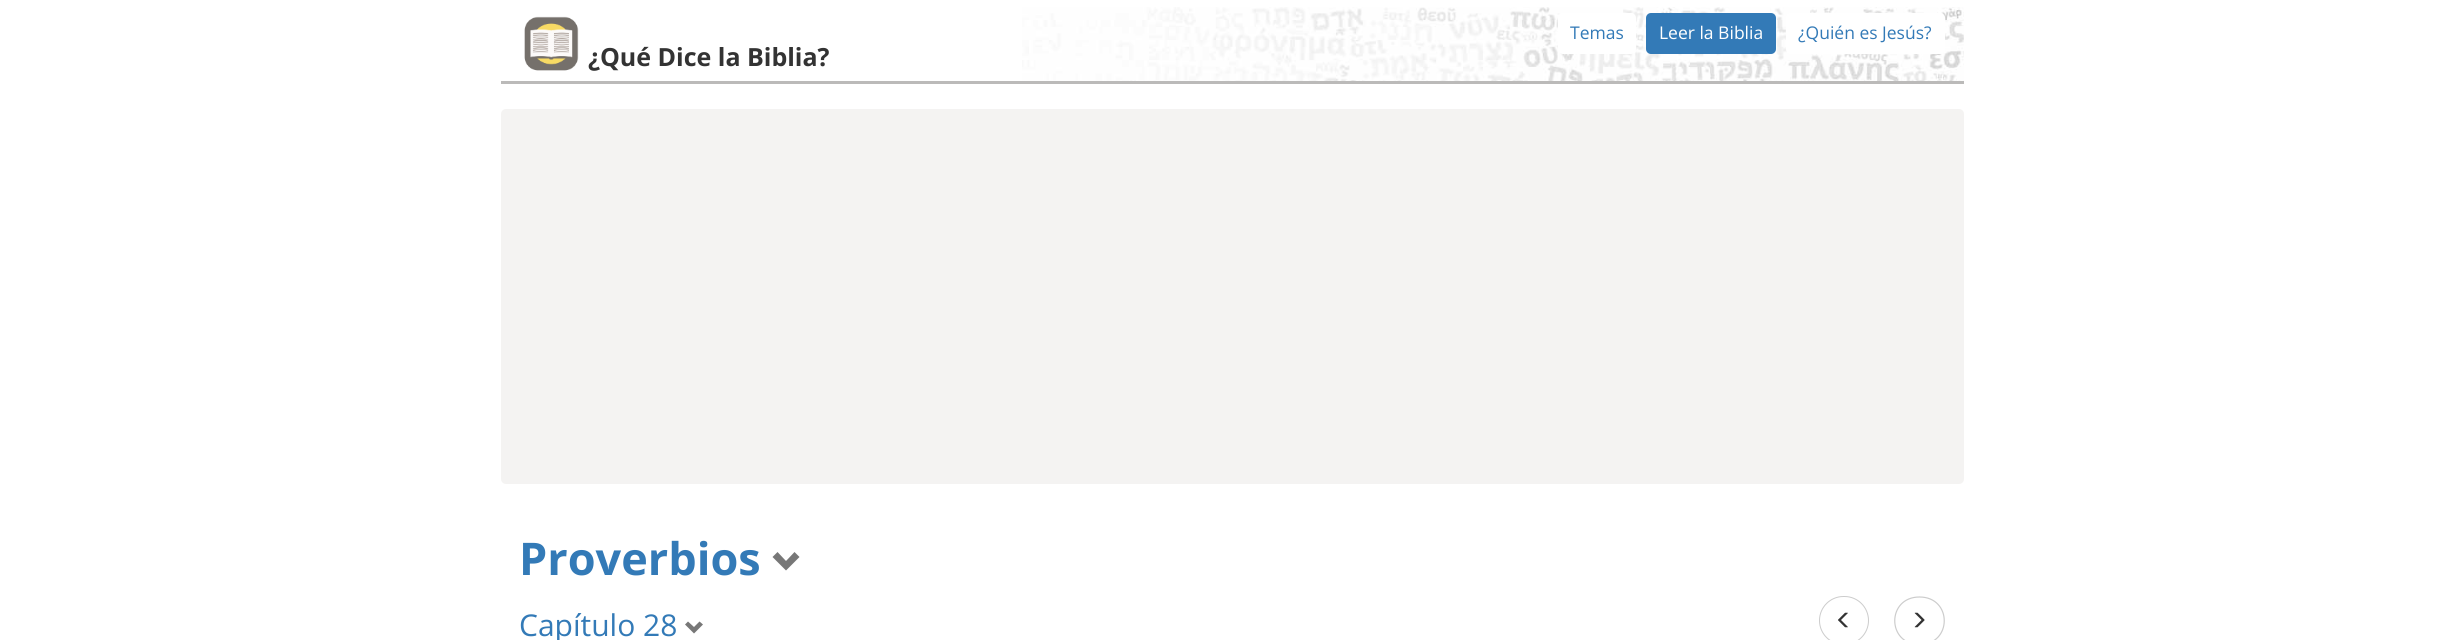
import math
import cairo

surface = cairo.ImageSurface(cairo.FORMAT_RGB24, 2463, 640)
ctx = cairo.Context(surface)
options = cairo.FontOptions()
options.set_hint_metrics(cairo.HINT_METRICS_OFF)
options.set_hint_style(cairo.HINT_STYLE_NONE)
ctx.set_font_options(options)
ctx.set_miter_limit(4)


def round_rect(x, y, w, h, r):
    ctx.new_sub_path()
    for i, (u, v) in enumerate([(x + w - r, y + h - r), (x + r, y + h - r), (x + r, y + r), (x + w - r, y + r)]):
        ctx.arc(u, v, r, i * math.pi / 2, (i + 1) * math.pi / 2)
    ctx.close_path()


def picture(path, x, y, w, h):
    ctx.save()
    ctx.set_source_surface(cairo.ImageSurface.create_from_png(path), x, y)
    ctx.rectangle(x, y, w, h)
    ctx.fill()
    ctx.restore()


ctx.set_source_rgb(1, 1, 1)
ctx.paint()
picture("img1.png", 1022, 7, 942, 74)
ctx.set_source_rgb(0.733, 0.729, 0.725)
ctx.rectangle(501, 81, 1463, 3)
ctx.fill()
ctx.set_source_rgb(1, 1, 1)
round_rect(1558, 13, 78, 41, 5)
ctx.fill()
ctx.select_font_face("Open Sans")
ctx.set_font_size(17.5)
ctx.set_source_rgb(0.2, 0.478, 0.718)
ctx.move_to(1570, 39)
ctx.show_text("Temas")
round_rect(1646, 13, 130, 41, 5)
ctx.fill()
ctx.set_source_rgb(1, 1, 1)
ctx.move_to(1659, 39)
ctx.show_text("Leer la Biblia")
round_rect(1786, 13, 159, 41, 5)
ctx.fill()
ctx.set_source_rgb(0.2, 0.478, 0.718)
ctx.move_to(1798, 39)
ctx.show_text("¿Quién es Jesús?")
picture("img2.png", 524, 16, 55, 55)
ctx.select_font_face("Open Sans", cairo.FONT_SLANT_NORMAL, cairo.FONT_WEIGHT_BOLD)
ctx.set_font_size(25)
ctx.set_source_rgb(0.2, 0.2, 0.2)
ctx.move_to(588, 66)
ctx.show_text("¿Qué Dice la Biblia?")
ctx.set_source_rgb(0.957, 0.953, 0.949)
round_rect(501, 109, 1463, 375, 5)
ctx.fill()
ctx.set_font_size(45)
ctx.set_source_rgb(0.2, 0.478, 0.718)
ctx.move_to(519, 575)
ctx.show_text("Proverbios")
ctx.set_source_rgb(0.467, 0.467, 0.467)
ctx.new_path()
ctx.move_to(799.5, 557)
ctx.line_to(786, 570.5)
ctx.line_to(772.5, 557)
ctx.line_to(777.5, 552)
ctx.line_to(786, 561)
ctx.line_to(794.5, 552)
ctx.close_path()
ctx.fill()
ctx.select_font_face("Open Sans")
ctx.set_font_size(30)
ctx.set_source_rgb(0.2, 0.478, 0.718)
ctx.move_to(519, 636)
ctx.show_text("Capítulo 28")
ctx.set_source_rgb(0.467, 0.467, 0.467)
ctx.new_path()
ctx.move_to(703, 624.5)
ctx.line_to(694, 633.5)
ctx.line_to(685, 624.5)
ctx.line_to(688, 621.5)
ctx.line_to(694, 627)
ctx.line_to(699.5, 621.5)
ctx.close_path()
ctx.fill()
round_rect(1819.5, 596.5, 49, 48, 24)
ctx.set_source_rgb(0.8, 0.8, 0.8)
ctx.set_line_width(1)
ctx.stroke()
picture("img3.png", 1838, 612, 10, 16)
ctx.new_path()
ctx.move_to(1919.5, 597)
ctx.curve_to(1952.5, 597, 1952.5, 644.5, 1919.5, 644.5)
ctx.curve_to(1886.5, 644.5, 1886.5, 597, 1919.5, 597)
ctx.close_path()
ctx.set_line_width(1.2)
ctx.stroke()
picture("img4.png", 1914, 612, 11, 16)
surface.write_to_png("page.png")
